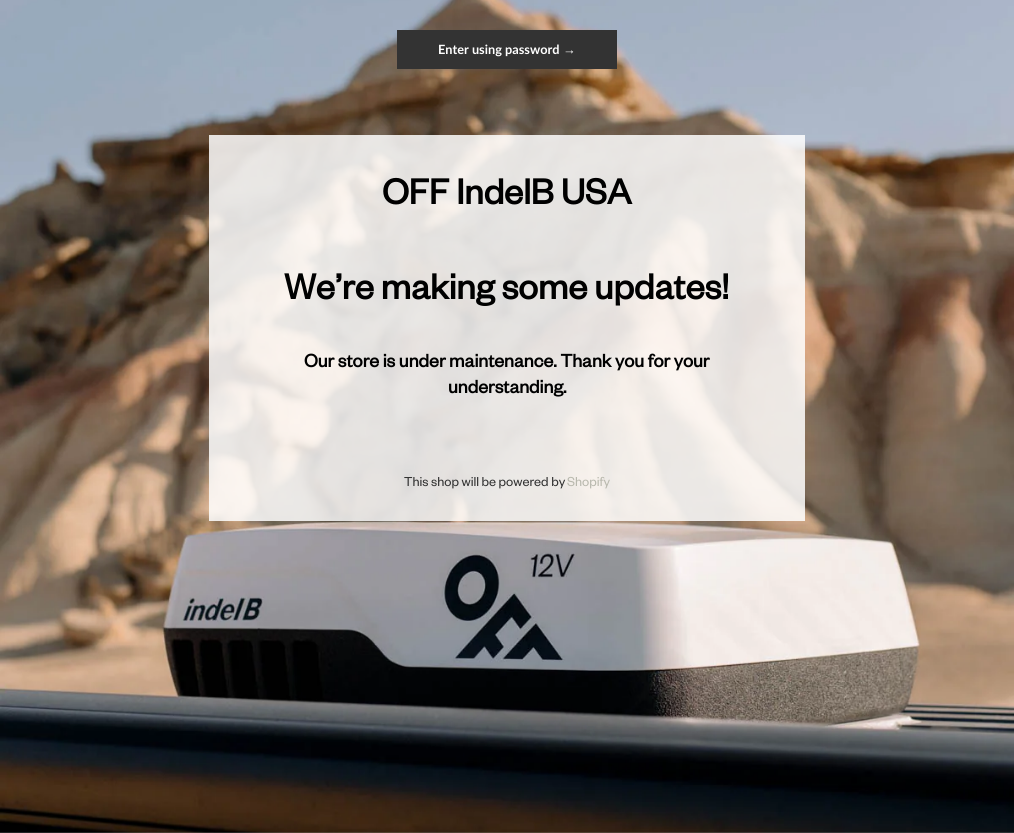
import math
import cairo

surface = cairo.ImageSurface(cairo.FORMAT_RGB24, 1014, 833)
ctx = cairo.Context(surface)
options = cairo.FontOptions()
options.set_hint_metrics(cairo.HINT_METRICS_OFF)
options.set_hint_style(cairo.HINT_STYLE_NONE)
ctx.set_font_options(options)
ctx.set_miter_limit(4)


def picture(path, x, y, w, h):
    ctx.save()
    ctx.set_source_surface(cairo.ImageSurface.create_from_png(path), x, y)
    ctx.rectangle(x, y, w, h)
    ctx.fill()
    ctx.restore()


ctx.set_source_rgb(1, 1, 1)
ctx.paint()
picture("img1.png", 0, 0, 1014, 833)
ctx.set_source_rgb(0.2, 0.2, 0.2)
ctx.rectangle(397, 30, 220, 39)
ctx.fill()
ctx.select_font_face("Lato", cairo.FONT_SLANT_NORMAL, cairo.FONT_WEIGHT_BOLD)
ctx.set_font_size(12.75)
ctx.set_source_rgb(1, 1, 1)
ctx.move_to(438, 54)
ctx.show_text("Enter using password")
ctx.select_font_face("Liberation Sans", cairo.FONT_SLANT_NORMAL, cairo.FONT_WEIGHT_BOLD)
ctx.move_to(563, 54)
ctx.show_text("→")
ctx.set_source_rgba(1, 1, 1, 0.84)
ctx.rectangle(209, 135, 596, 386)
ctx.fill()
ctx.select_font_face("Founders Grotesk", cairo.FONT_SLANT_NORMAL, cairo.FONT_WEIGHT_BOLD)
ctx.set_font_size(39)
ctx.set_source_rgb(0, 0, 0)
ctx.move_to(382, 204)
ctx.show_text("OFF IndelB USA")
ctx.move_to(284, 299)
ctx.show_text("We’re making some updates!")
ctx.set_font_size(20)
ctx.move_to(304, 367)
ctx.show_text("Our store is under maintenance. Thank you for your")
ctx.move_to(448, 393)
ctx.show_text("understanding.")
ctx.select_font_face("Founders Grotesk")
ctx.set_font_size(14.25)
ctx.set_source_rgb(0.192, 0.192, 0.192)
ctx.move_to(404, 486)
ctx.show_text("This shop will be powered by")
ctx.set_source_rgb(0.722, 0.722, 0.678)
ctx.move_to(567, 486)
ctx.show_text("Shopify")
surface.write_to_png("page.png")
